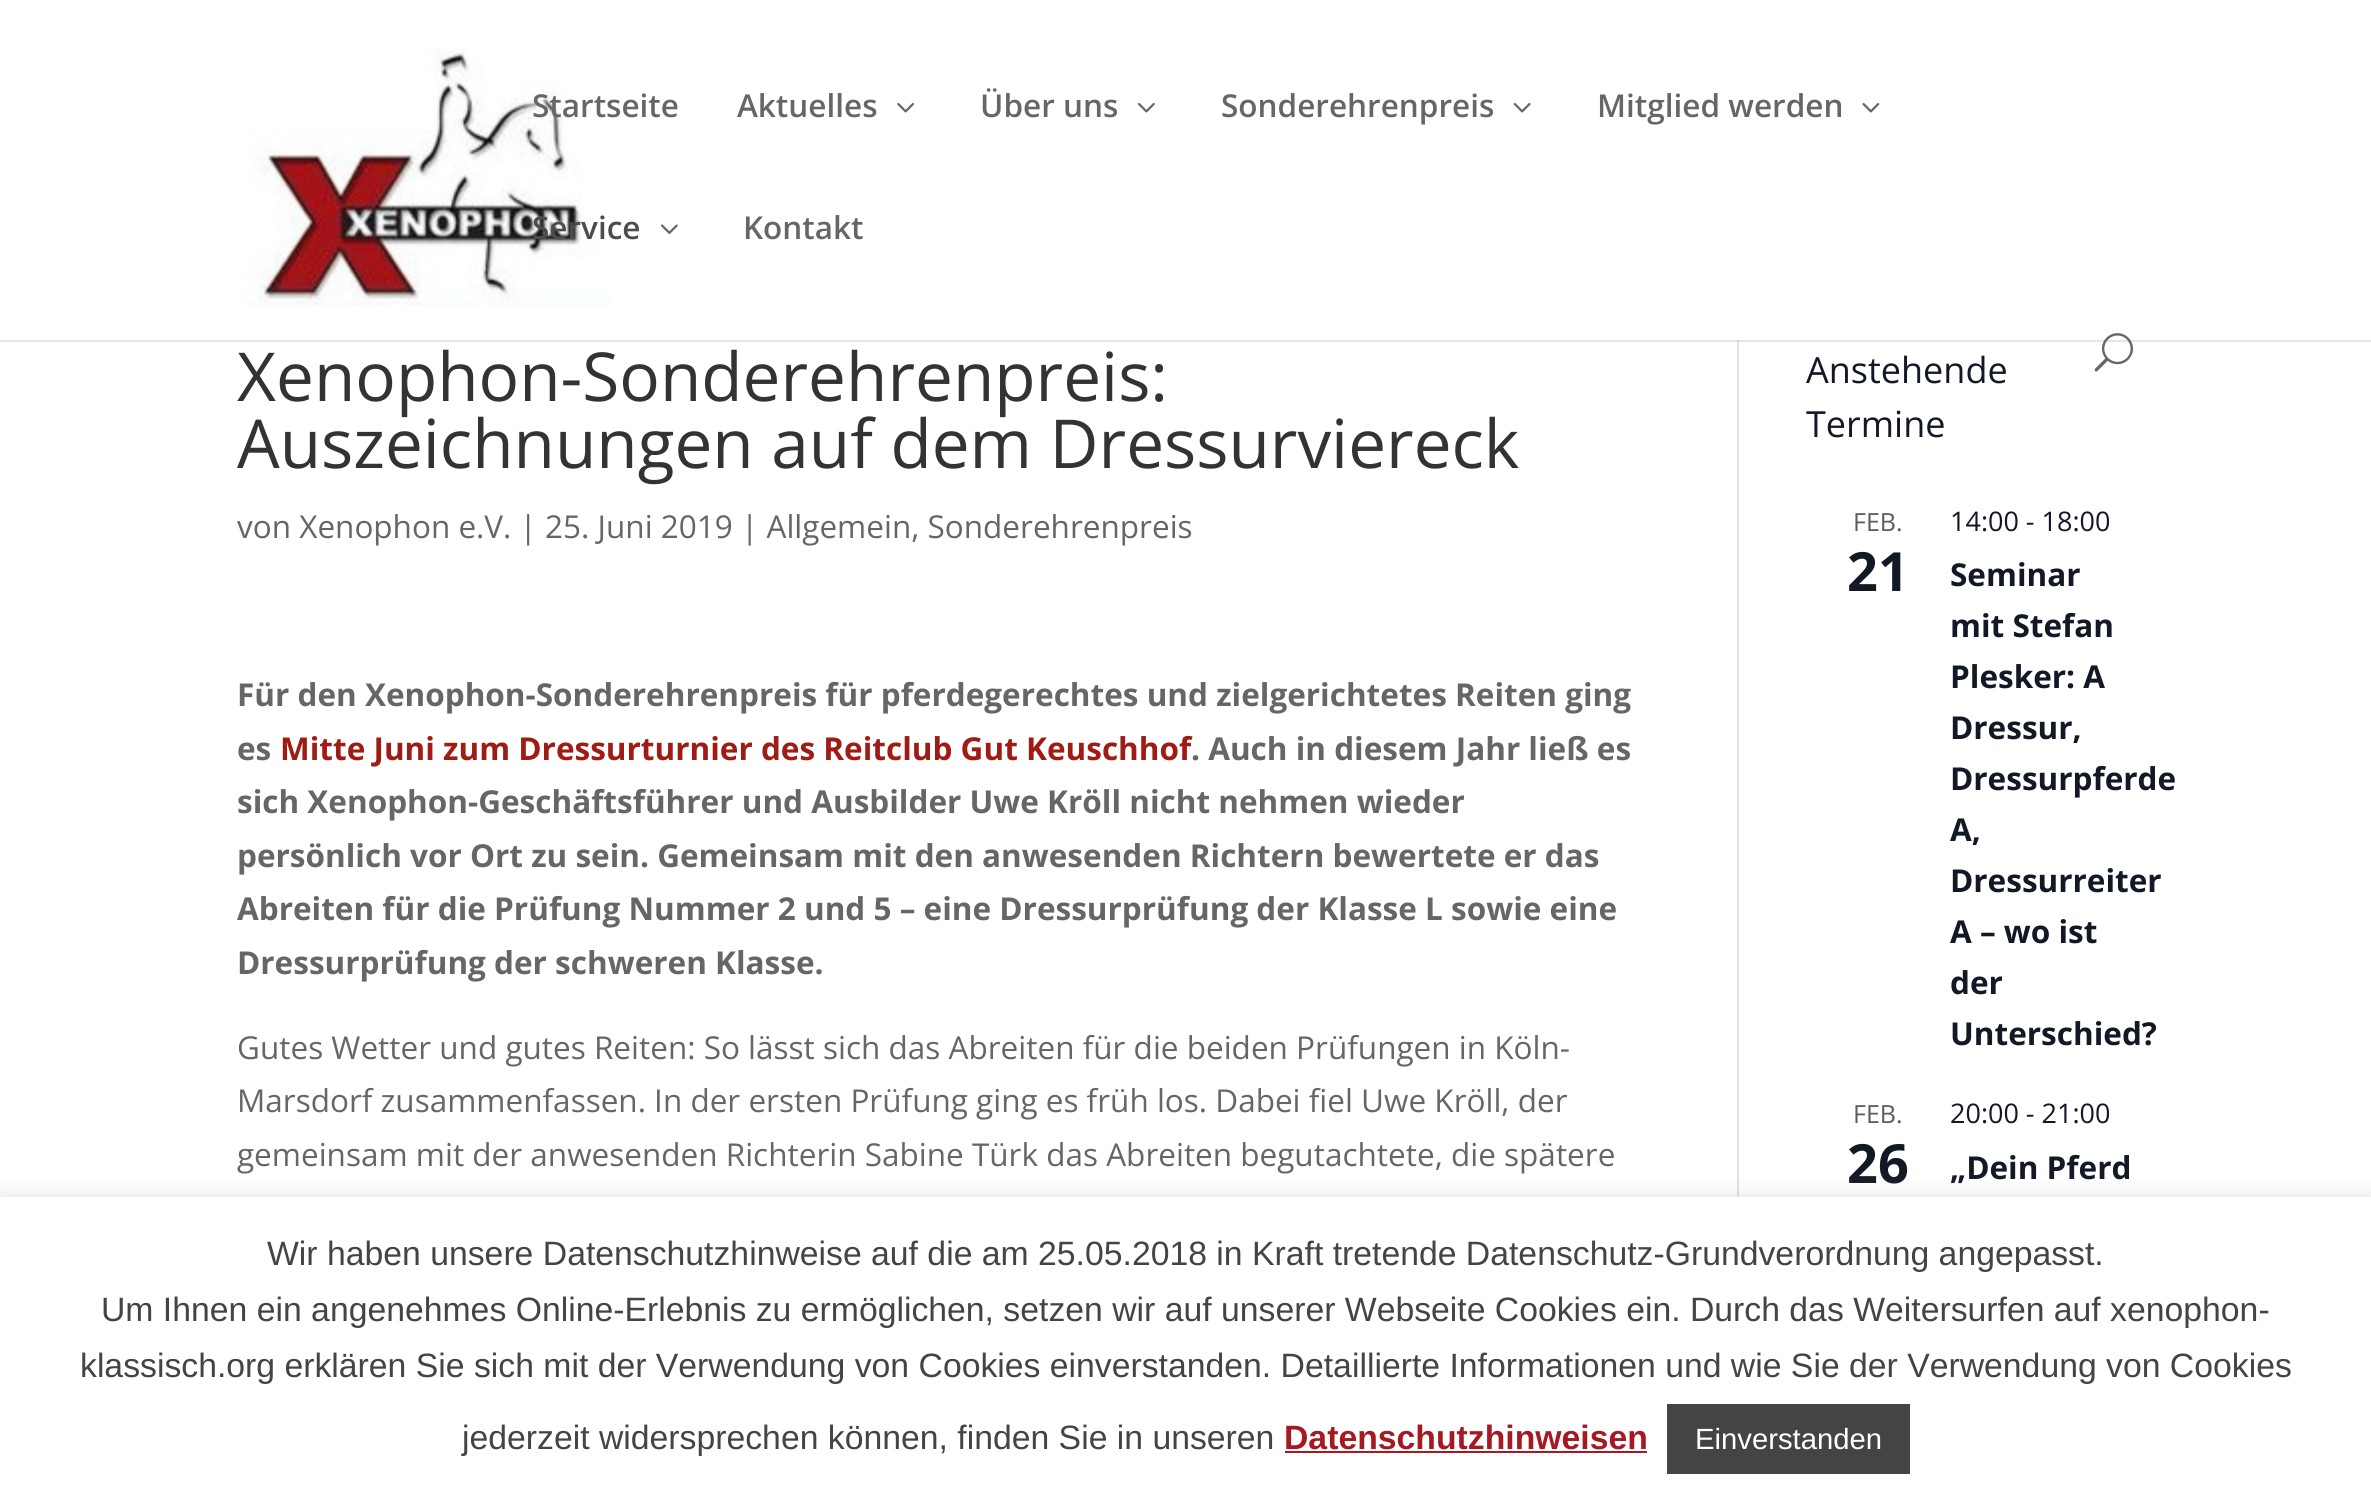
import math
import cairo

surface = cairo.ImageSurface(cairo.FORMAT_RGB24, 2371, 1500)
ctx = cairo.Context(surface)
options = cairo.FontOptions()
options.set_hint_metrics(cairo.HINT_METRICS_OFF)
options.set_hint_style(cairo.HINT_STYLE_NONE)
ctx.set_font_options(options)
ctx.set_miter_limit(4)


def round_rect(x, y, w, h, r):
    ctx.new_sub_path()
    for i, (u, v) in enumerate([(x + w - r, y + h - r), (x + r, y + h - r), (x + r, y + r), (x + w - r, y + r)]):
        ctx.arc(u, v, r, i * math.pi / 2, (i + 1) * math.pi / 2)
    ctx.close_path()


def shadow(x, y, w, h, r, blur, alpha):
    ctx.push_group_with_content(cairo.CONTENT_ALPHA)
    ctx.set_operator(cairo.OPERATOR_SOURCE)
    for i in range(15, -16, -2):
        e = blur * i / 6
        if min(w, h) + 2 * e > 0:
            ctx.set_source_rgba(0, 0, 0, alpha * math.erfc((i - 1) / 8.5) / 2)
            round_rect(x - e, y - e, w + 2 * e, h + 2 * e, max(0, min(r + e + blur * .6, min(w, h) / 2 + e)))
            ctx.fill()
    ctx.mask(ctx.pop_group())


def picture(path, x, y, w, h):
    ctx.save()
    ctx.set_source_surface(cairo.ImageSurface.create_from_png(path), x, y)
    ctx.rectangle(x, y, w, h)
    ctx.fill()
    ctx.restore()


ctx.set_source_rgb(1, 1, 1)
ctx.paint()
ctx.set_source_rgb(0.886, 0.886, 0.886)
ctx.rectangle(1737, 340, 2, 857)
ctx.fill()
ctx.set_source_rgba(0, 0, 0, 0.1)
ctx.new_path()
ctx.move_to(0, 340)
ctx.line_to(0, 342)
ctx.line_to(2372, 342)
ctx.line_to(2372, 2)
ctx.line_to(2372, 340)
ctx.close_path()
ctx.fill()
picture("img1.png", 246, 48, 366, 258)
ctx.select_font_face("Open Sans SemiBold")
ctx.set_font_size(31.5)
ctx.set_source_rgb(0.4, 0.4, 0.4)
ctx.move_to(532, 117)
ctx.show_text("Startseite")
ctx.move_to(737, 117)
ctx.show_text("Aktuelles")
picture("img2.png", 897, 103, 17, 10)
ctx.move_to(980, 117)
ctx.show_text("Über uns")
picture("img3.png", 1138, 103, 17, 10)
ctx.move_to(1221, 117)
ctx.show_text("Sonderehrenpreis")
picture("img4.png", 1513, 103, 18, 10)
ctx.move_to(1597, 117)
ctx.show_text("Mitglied werden")
picture("img5.png", 1862, 103, 18, 10)
ctx.set_source_rgb(0.298, 0.298, 0.298)
ctx.move_to(532, 239)
ctx.show_text("Service")
picture("img6.png", 661, 224, 17, 10)
ctx.set_source_rgb(0.4, 0.4, 0.4)
ctx.move_to(743, 239)
ctx.show_text("Kontakt")
picture("img7.png", 2094, 333, 39, 39)
ctx.select_font_face("Open Sans")
ctx.set_font_size(67.5)
ctx.set_source_rgb(0.2, 0.2, 0.2)
ctx.move_to(237, 401)
ctx.show_text("Xenophon-Sonderehrenpreis:")
ctx.move_to(237, 468)
ctx.show_text("Auszeichnungen auf dem Dressurviereck")
ctx.set_font_size(31.5)
ctx.set_source_rgb(0.4, 0.4, 0.4)
ctx.move_to(237, 538)
ctx.show_text("von Xenophon e.V. | 25. Juni 2019 | Allgemein, Sonderehrenpreis")
ctx.select_font_face("Open Sans", cairo.FONT_SLANT_NORMAL, cairo.FONT_WEIGHT_BOLD)
ctx.move_to(237, 706)
ctx.show_text("Für den Xenophon-Sonderehrenpreis für pferdegerechtes und zielgerichtetes Reiten ging")
ctx.move_to(237, 760)
ctx.show_text("es")
ctx.set_source_rgb(0.62, 0.11, 0.082)
ctx.move_to(280, 760)
ctx.show_text("Mitte Juni zum Dressurturnier des Reitclub Gut Keuschhof")
ctx.set_source_rgb(0.4, 0.4, 0.4)
ctx.move_to(1191, 760)
ctx.show_text(". Auch in diesem Jahr ließ es")
ctx.move_to(237, 813)
ctx.show_text("sich Xenophon-Geschäftsführer und Ausbilder Uwe Kröll nicht nehmen wieder")
ctx.move_to(237, 867)
ctx.show_text("persönlich vor Ort zu sein. Gemeinsam mit den anwesenden Richtern bewertete er das")
ctx.move_to(237, 920)
ctx.show_text("Abreiten für die Prüfung Nummer 2 und 5 – eine Dressurprüfung der Klasse L sowie eine")
ctx.move_to(237, 974)
ctx.show_text("Dressurprüfung der schweren Klasse.")
ctx.select_font_face("Open Sans")
ctx.move_to(237, 1059)
ctx.show_text("Gutes Wetter und gutes Reiten: So lässt sich das Abreiten für die beiden Prüfungen in Köln-")
ctx.move_to(237, 1112)
ctx.show_text("Marsdorf zusammenfassen. In der ersten Prüfung ging es früh los. Dabei fiel Uwe Kröll, der")
ctx.move_to(237, 1166)
ctx.show_text("gemeinsam mit der anwesenden Richterin Sabine Türk das Abreiten begutachtete, die spätere")
ctx.set_font_size(36)
ctx.set_source_rgb(0.078, 0.094, 0.153)
ctx.move_to(1806, 383)
ctx.show_text("Anstehende")
ctx.move_to(1806, 437)
ctx.show_text("Termine")
ctx.set_font_size(25)
ctx.set_source_rgb(0.365, 0.365, 0.365)
ctx.move_to(1853, 531)
ctx.show_text("FEB.")
ctx.select_font_face("Open Sans", cairo.FONT_SLANT_NORMAL, cairo.FONT_WEIGHT_BOLD)
ctx.set_font_size(54)
ctx.set_source_rgb(0.078, 0.094, 0.153)
ctx.move_to(1847, 591)
ctx.show_text("21")
ctx.select_font_face("Open Sans")
ctx.set_font_size(27)
ctx.move_to(1950, 531)
ctx.show_text("14:00 - 18:00")
ctx.select_font_face("Open Sans", cairo.FONT_SLANT_NORMAL, cairo.FONT_WEIGHT_BOLD)
ctx.set_font_size(31.5)
ctx.move_to(1950, 586)
ctx.show_text("Seminar")
ctx.move_to(1950, 637)
ctx.show_text("mit Stefan")
ctx.move_to(1950, 688)
ctx.show_text("Plesker: A")
ctx.move_to(1950, 739)
ctx.show_text("Dressur,")
ctx.move_to(1950, 790)
ctx.show_text("Dressurpferde")
ctx.move_to(1950, 841)
ctx.show_text("A,")
ctx.move_to(1950, 892)
ctx.show_text("Dressurreiter")
ctx.move_to(1950, 943)
ctx.show_text("A – wo ist")
ctx.move_to(1950, 994)
ctx.show_text("der")
ctx.move_to(1950, 1045)
ctx.show_text("Unterschied?")
ctx.select_font_face("Open Sans")
ctx.set_font_size(25)
ctx.set_source_rgb(0.365, 0.365, 0.365)
ctx.move_to(1853, 1123)
ctx.show_text("FEB.")
ctx.select_font_face("Open Sans", cairo.FONT_SLANT_NORMAL, cairo.FONT_WEIGHT_BOLD)
ctx.set_font_size(54)
ctx.set_source_rgb(0.078, 0.094, 0.153)
ctx.move_to(1847, 1183)
ctx.show_text("26")
ctx.select_font_face("Open Sans")
ctx.set_font_size(27)
ctx.move_to(1950, 1123)
ctx.show_text("20:00 - 21:00")
ctx.select_font_face("Open Sans", cairo.FONT_SLANT_NORMAL, cairo.FONT_WEIGHT_BOLD)
ctx.set_font_size(31.5)
ctx.move_to(1950, 1179)
ctx.show_text("„Dein Pferd")
ctx.set_source_rgb(0.675, 0.671, 0.671)
shadow(0, 1195, 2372, 304, 0, 11, 0.3)
ctx.set_source_rgb(1, 1, 1)
ctx.rectangle(0, 1197, 2371, 303)
ctx.fill()
ctx.select_font_face("Liberation Sans")
ctx.set_font_size(33.75)
ctx.set_source_rgb(0.267, 0.267, 0.267)
ctx.move_to(267, 1265)
ctx.show_text("Wir haben unsere Datenschutzhinweise auf die am 25.05.2018 in Kraft tretende Datenschutz-Grundverordnung angepasst.")
ctx.move_to(101, 1321)
ctx.show_text("Um Ihnen ein angenehmes Online-Erlebnis zu ermöglichen, setzen wir auf unserer Webseite Cookies ein. Durch das Weitersurfen auf xenophon-")
ctx.move_to(80, 1377)
ctx.show_text("klassisch.org erklären Sie sich mit der Verwendung von Cookies einverstanden. Detaillierte Informationen und wie Sie der Verwendung von Cookies")
ctx.move_to(462, 1449)
ctx.show_text("jederzeit widersprechen können, finden Sie in unseren")
ctx.select_font_face("Liberation Sans", cairo.FONT_SLANT_NORMAL, cairo.FONT_WEIGHT_BOLD)
ctx.set_source_rgb(0.651, 0.098, 0.133)
ctx.move_to(1284, 1449)
ctx.show_text("Datenschutzhinweisen")
ctx.rectangle(1285, 1451, 362, 2)
ctx.fill()
ctx.set_source_rgb(0.267, 0.267, 0.267)
ctx.rectangle(1667, 1404, 243, 70)
ctx.fill()
ctx.select_font_face("Liberation Sans")
ctx.set_font_size(29.25)
ctx.set_source_rgb(1, 1, 1)
ctx.move_to(1695, 1449)
ctx.show_text("Einverstanden")
surface.write_to_png("page.png")
